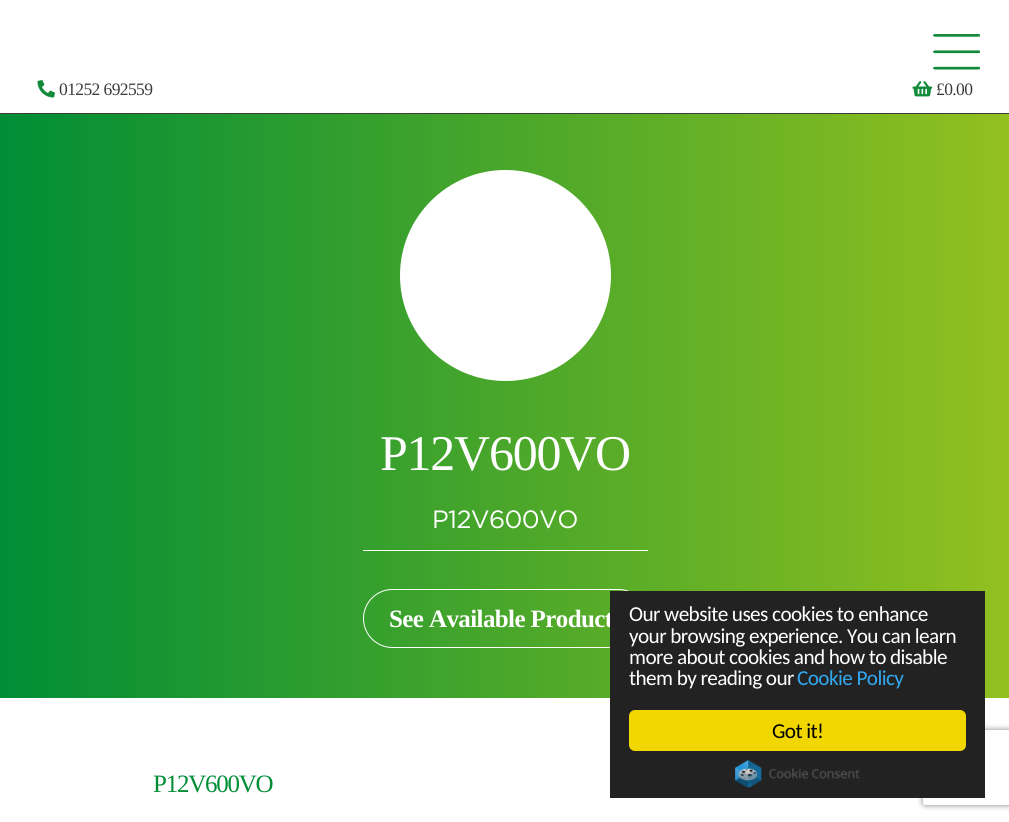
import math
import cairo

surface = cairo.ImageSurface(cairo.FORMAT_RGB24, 1009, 822)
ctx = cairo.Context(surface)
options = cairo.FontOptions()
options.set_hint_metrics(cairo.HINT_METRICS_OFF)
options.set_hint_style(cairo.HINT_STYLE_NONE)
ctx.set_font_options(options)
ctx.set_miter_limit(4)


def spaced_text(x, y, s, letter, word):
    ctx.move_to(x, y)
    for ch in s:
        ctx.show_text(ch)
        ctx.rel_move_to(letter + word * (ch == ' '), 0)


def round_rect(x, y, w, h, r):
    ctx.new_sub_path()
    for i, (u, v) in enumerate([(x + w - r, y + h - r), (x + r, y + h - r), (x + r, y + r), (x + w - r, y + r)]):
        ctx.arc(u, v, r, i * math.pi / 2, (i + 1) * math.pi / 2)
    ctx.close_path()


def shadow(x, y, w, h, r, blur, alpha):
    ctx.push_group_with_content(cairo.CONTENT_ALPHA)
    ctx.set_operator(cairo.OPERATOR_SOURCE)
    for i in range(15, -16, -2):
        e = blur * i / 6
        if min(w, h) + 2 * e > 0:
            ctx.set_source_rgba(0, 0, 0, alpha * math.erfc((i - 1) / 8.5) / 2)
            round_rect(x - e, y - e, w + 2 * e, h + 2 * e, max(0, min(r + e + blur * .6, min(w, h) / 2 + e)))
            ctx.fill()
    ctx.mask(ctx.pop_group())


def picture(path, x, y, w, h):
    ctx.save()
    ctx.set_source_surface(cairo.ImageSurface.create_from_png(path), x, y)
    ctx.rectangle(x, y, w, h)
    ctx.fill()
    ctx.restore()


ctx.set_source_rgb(1, 1, 1)
ctx.paint()
ctx.set_source_rgb(0.235, 0.235, 0.231)
ctx.rectangle(0, 113, 1009, 1)
ctx.fill()
picture("img1.png", 933, 34, 47, 36)
picture("img2.png", 37, 80, 18, 18)
ctx.select_font_face("Liberation Serif")
ctx.set_font_size(17.5)
ctx.set_source_rgb(0.231, 0.231, 0.227)
spaced_text(59, 95, "01252 692559", -0.6, 0)
picture("img3.png", 912, 81, 21, 16)
spaced_text(936, 95, "£0.00", -0.6, 0)
gradient = cairo.LinearGradient(0, 403, 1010, 403)
gradient.add_color_stop_rgba(0, 0, 0.553, 0.212, 1)
gradient.add_color_stop_rgba(1, 0.573, 0.753, 0.122, 1)
ctx.set_source(gradient)
ctx.rectangle(0, 114, 1009, 584)
ctx.fill()
ctx.set_source_rgb(1, 1, 1)
ctx.arc(505.5, 275.5, 105.5, 0, 2 * math.pi)
ctx.fill()
ctx.rectangle(363, 550, 285, 1)
ctx.fill()
ctx.set_font_size(50)
spaced_text(380, 470, "P12V600VO", -1.25, 0)
ctx.select_font_face("Gotham")
ctx.set_font_size(25)
spaced_text(432, 528, "P12V600VO", -0.6, 0)
round_rect(363.5, 589.5, 284, 58, 29)
ctx.set_line_width(1)
ctx.stroke()
ctx.select_font_face("Liberation Serif", cairo.FONT_SLANT_NORMAL, cairo.FONT_WEIGHT_BOLD)
spaced_text(389, 627, "See Available Product", -0.6, 0)
ctx.select_font_face("Liberation Serif")
ctx.set_source_rgb(0, 0.553, 0.212)
spaced_text(153, 792, "P12V600VO", -1.25, 0)
ctx.save()
ctx.set_fill_rule(cairo.FILL_RULE_EVEN_ODD)
ctx.new_path()
ctx.move_to(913, 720)
ctx.line_to(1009, 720)
ctx.line_to(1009, 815)
ctx.line_to(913, 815)
ctx.close_path()
ctx.move_to(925.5, 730)
ctx.line_to(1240.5, 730)
ctx.curve_to(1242, 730, 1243, 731, 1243, 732.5)
ctx.line_to(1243, 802.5)
ctx.curve_to(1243, 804, 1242, 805, 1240.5, 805)
ctx.line_to(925.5, 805)
ctx.curve_to(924, 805, 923, 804, 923, 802.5)
ctx.line_to(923, 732.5)
ctx.curve_to(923, 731, 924, 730, 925.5, 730)
ctx.close_path()
ctx.clip()
ctx.set_source_rgb(0.502, 0.502, 0.502)
shadow(923, 730, 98, 75, 2.5, 3, 1)
ctx.restore()
ctx.set_source_rgb(0.133, 0.133, 0.133)
ctx.rectangle(610, 591, 375, 207)
ctx.fill()
ctx.select_font_face("Carlito")
ctx.set_font_size(21.25)
ctx.set_source_rgb(1, 1, 1)
spaced_text(629, 621, "Our website uses cookies to enhance", -0.6, 0)
spaced_text(629, 643, "your browsing experience. You can learn", -0.6, 0)
spaced_text(629, 664, "more about cookies and how to disable", -0.6, 0)
spaced_text(629, 685, "them by reading our", -0.6, 0)
ctx.set_source_rgb(0.192, 0.659, 0.941)
spaced_text(797, 685, "Cookie Policy", -0.6, 0)
ctx.set_source_rgb(0.945, 0.839, 0)
round_rect(629, 710, 337, 41, 6)
ctx.fill()
ctx.set_source_rgb(0, 0, 0)
spaced_text(772, 738, "Got it!", -0.6, 0)
picture("img4.png", 735, 760, 125, 28)
surface.write_to_png("page.png")
